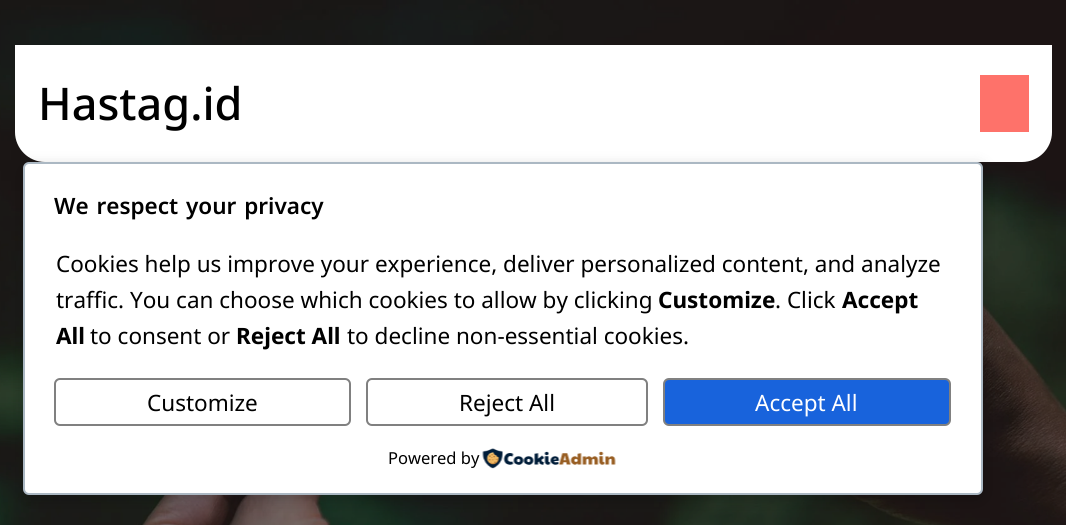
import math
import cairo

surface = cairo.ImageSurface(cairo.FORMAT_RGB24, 1066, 525)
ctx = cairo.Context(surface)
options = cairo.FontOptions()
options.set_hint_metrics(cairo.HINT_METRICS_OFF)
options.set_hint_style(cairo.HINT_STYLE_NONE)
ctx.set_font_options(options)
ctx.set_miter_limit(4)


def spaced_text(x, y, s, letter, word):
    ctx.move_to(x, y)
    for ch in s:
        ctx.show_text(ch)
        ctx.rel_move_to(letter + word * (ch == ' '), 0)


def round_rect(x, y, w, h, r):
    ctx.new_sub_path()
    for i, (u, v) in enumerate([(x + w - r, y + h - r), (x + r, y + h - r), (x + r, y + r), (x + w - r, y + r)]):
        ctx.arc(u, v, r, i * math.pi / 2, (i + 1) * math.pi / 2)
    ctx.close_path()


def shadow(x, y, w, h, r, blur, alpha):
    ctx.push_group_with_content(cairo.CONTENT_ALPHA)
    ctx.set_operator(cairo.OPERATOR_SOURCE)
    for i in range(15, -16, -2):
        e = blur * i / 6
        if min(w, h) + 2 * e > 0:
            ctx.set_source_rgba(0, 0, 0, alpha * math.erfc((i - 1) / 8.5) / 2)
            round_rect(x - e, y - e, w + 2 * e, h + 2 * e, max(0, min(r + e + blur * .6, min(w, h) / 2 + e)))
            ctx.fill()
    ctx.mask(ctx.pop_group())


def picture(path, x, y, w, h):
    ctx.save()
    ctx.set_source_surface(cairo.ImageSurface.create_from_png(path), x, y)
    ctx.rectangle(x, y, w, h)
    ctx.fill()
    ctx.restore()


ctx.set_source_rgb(1, 1, 1)
ctx.paint()
picture("img1.png", 0, 0, 1066, 525)
ctx.set_source_rgb(1, 1, 1)
ctx.new_path()
ctx.move_to(15, 45)
ctx.line_to(1052, 45)
ctx.line_to(1052, 132)
ctx.curve_to(1052, 148.5, 1038.5, 162, 1022, 162)
ctx.line_to(45, 162)
ctx.curve_to(28.5, 162, 15, 148.5, 15, 132)
ctx.close_path()
ctx.fill()
ctx.select_font_face("Noto Sans Medium")
ctx.set_font_size(45)
ctx.set_source_rgb(0, 0, 0)
ctx.move_to(38, 120)
ctx.show_text("Hastag.id")
ctx.set_source_rgb(0.996, 0.447, 0.416)
ctx.rectangle(980, 75, 49, 57)
ctx.fill()
ctx.set_source_rgb(0, 0, 0)
shadow(24, 167, 960, 333, 6, 7.5, 0.2)
ctx.set_source_rgb(1, 1, 1)
round_rect(24, 163, 958, 331, 5)
ctx.fill_preserve()
ctx.set_source_rgb(0.671, 0.722, 0.765)
ctx.stroke()
ctx.select_font_face("Noto Sans SemiBold")
ctx.set_font_size(22.5)
ctx.set_source_rgb(0, 0, 0)
spaced_text(54, 214, "We respect your privacy", 0, 2)
ctx.select_font_face("Noto Sans")
ctx.move_to(56, 272)
ctx.show_text("Cookies help us improve your experience, deliver personalized content, and analyze")
ctx.move_to(56, 308)
ctx.show_text("traffic. You can choose which cookies to allow by clicking")
ctx.select_font_face("Noto Sans", cairo.FONT_SLANT_NORMAL, cairo.FONT_WEIGHT_BOLD)
ctx.move_to(658, 308)
ctx.show_text("Customize")
ctx.select_font_face("Noto Sans")
ctx.move_to(775, 308)
ctx.show_text(". Click")
ctx.select_font_face("Noto Sans", cairo.FONT_SLANT_NORMAL, cairo.FONT_WEIGHT_BOLD)
ctx.move_to(842, 308)
ctx.show_text("Accept")
ctx.move_to(56, 344)
ctx.show_text("All")
ctx.select_font_face("Noto Sans")
ctx.move_to(90, 344)
ctx.show_text("to consent or")
ctx.select_font_face("Noto Sans", cairo.FONT_SLANT_NORMAL, cairo.FONT_WEIGHT_BOLD)
ctx.move_to(236, 344)
ctx.show_text("Reject All")
ctx.select_font_face("Noto Sans")
ctx.move_to(347, 344)
ctx.show_text("to decline non-essential cookies.")
round_rect(55, 379, 295, 46, 5)
ctx.set_source_rgb(0.502, 0.502, 0.502)
ctx.stroke()
ctx.set_source_rgb(0, 0, 0)
ctx.move_to(147, 411)
ctx.show_text("Customize")
round_rect(367, 379, 280, 46, 5)
ctx.set_source_rgb(0.502, 0.502, 0.502)
ctx.stroke()
ctx.set_source_rgb(0, 0, 0)
ctx.move_to(459, 411)
ctx.show_text("Reject All")
ctx.set_source_rgb(0.094, 0.388, 0.863)
round_rect(664, 379, 286, 46, 5)
ctx.fill_preserve()
ctx.set_source_rgb(0.502, 0.502, 0.502)
ctx.stroke()
ctx.set_source_rgb(1, 1, 1)
ctx.move_to(755, 411)
ctx.show_text("Accept All")
ctx.set_font_size(16.5)
ctx.set_source_rgb(0, 0, 0)
ctx.move_to(388, 464)
ctx.show_text("Powered by")
picture("img2.png", 482, 448, 134, 21)
surface.write_to_png("page.png")
